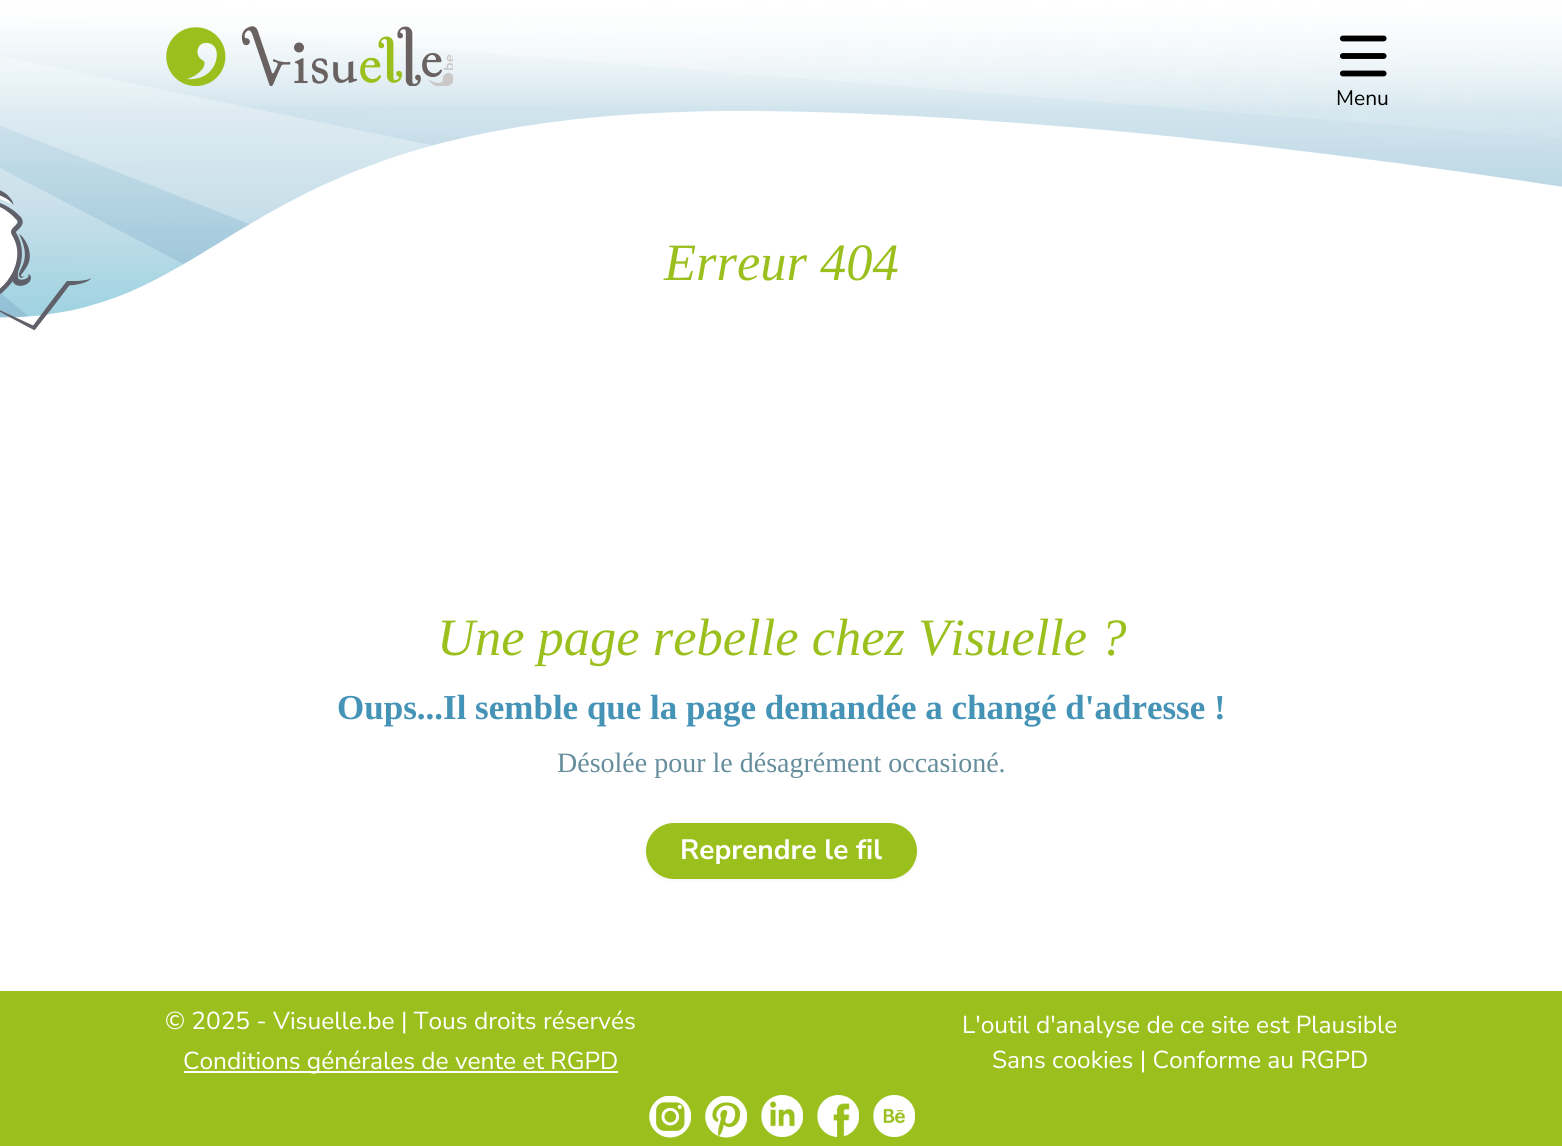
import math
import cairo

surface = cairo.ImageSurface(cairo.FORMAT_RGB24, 1562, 1146)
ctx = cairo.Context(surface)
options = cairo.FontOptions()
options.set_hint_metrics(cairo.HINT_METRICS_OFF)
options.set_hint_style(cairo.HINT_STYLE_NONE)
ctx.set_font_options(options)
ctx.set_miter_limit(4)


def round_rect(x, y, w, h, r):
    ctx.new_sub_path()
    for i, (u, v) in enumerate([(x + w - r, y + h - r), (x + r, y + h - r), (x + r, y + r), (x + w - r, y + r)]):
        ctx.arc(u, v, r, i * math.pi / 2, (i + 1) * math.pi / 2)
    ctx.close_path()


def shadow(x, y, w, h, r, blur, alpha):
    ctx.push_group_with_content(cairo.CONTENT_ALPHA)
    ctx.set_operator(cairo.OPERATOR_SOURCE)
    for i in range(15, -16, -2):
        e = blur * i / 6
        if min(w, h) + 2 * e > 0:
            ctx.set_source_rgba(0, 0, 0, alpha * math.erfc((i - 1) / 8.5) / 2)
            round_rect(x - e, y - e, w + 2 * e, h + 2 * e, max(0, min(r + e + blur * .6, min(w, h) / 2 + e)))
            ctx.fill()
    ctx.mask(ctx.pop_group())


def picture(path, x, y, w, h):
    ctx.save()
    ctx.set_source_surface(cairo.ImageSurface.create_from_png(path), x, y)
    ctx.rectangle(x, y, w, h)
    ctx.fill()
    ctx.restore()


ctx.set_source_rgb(1, 1, 1)
ctx.paint()
picture("img3.png", 0, 1, 1562, 330)
gradient = cairo.LinearGradient(781, 0, 781, 112)
gradient.add_color_stop_rgba(0, 1, 1, 1, 1)
gradient.add_color_stop_rgba(1, 1, 1, 1, 0)
ctx.set_source(gradient)
ctx.rectangle(0, 1, 1562, 105)
ctx.fill()
picture("img1.png", 166, 26, 287, 60)
picture("img2.png", 1339, 35, 48, 42)
ctx.select_font_face("Nunito Sans")
ctx.set_font_size(21)
ctx.set_source_rgb(0, 0, 0)
ctx.move_to(1336, 105)
ctx.show_text("Menu")
ctx.select_font_face("Liberation Serif", cairo.FONT_SLANT_ITALIC)
ctx.set_font_size(52.5)
ctx.set_source_rgb(0.608, 0.753, 0.118)
ctx.move_to(664, 280)
ctx.show_text("Erreur 404")
ctx.move_to(437, 655)
ctx.show_text("Une page rebelle chez Visuelle ?")
ctx.select_font_face("Liberation Serif", cairo.FONT_SLANT_NORMAL, cairo.FONT_WEIGHT_BOLD)
ctx.set_font_size(35)
ctx.set_source_rgb(0.271, 0.576, 0.718)
ctx.move_to(337, 719)
ctx.show_text("Oups...Il semble que la page demandée a changé d'adresse !")
ctx.select_font_face("Liberation Serif")
ctx.set_font_size(28)
ctx.set_source_rgb(0.396, 0.553, 0.612)
ctx.move_to(557, 772)
ctx.show_text("Désolée pour le désagrément occasioné.")
ctx.set_source_rgb(0, 0, 0)
shadow(646, 824, 271, 56, 28, 2, 0.05)
ctx.set_source_rgb(0.608, 0.753, 0.118)
round_rect(646, 823, 271, 56, 28)
ctx.fill()
ctx.select_font_face("Nunito Sans", cairo.FONT_SLANT_NORMAL, cairo.FONT_WEIGHT_BOLD)
ctx.set_source_rgb(1, 1, 1)
ctx.move_to(680, 859)
ctx.show_text("Reprendre le fil")
ctx.set_source_rgb(0.608, 0.753, 0.118)
ctx.rectangle(0, 991, 1562, 155)
ctx.fill()
ctx.select_font_face("Nunito Sans")
ctx.set_font_size(24.5)
ctx.set_source_rgb(1, 1, 1)
ctx.move_to(165, 1029)
ctx.show_text("© 2025 - Visuelle.be | Tous droits réservés")
ctx.rectangle(184, 1071, 434, 2)
ctx.fill()
ctx.move_to(183, 1069)
ctx.show_text("Conditions générales de vente et RGPD")
ctx.move_to(962, 1033)
ctx.show_text("L'outil d'analyse de ce site est Plausible")
ctx.move_to(992, 1068)
ctx.show_text("Sans cookies | Conforme au RGPD")
picture("img4.png", 649, 1096, 42, 42)
picture("img5.png", 705, 1096, 42, 42)
picture("img6.png", 761, 1095, 42, 42)
picture("img7.png", 817, 1095, 42, 42)
picture("img8.png", 873, 1095, 42, 42)
surface.write_to_png("page.png")
